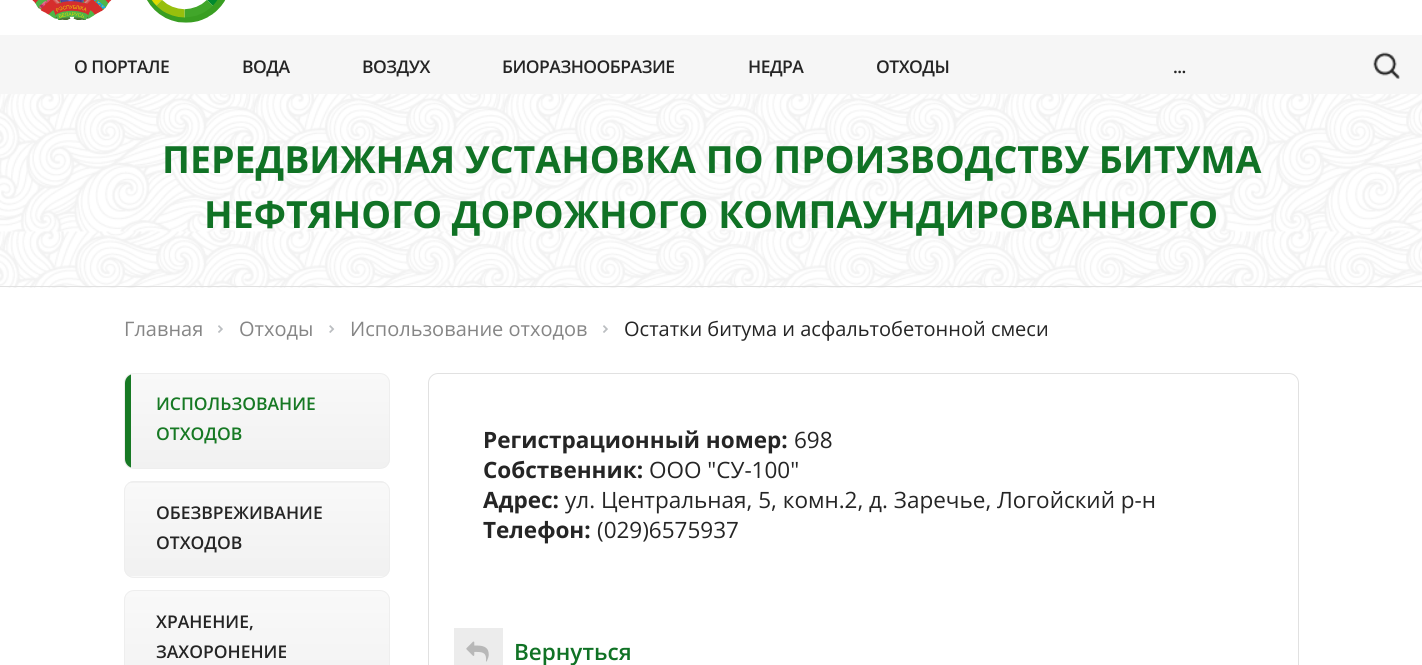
import math
import cairo

surface = cairo.ImageSurface(cairo.FORMAT_RGB24, 1422, 665)
ctx = cairo.Context(surface)
options = cairo.FontOptions()
options.set_hint_metrics(cairo.HINT_METRICS_OFF)
options.set_hint_style(cairo.HINT_STYLE_NONE)
ctx.set_font_options(options)
ctx.set_miter_limit(4)


def spaced_text(x, y, s, letter, word):
    ctx.move_to(x, y)
    for ch in s:
        ctx.show_text(ch)
        ctx.rel_move_to(letter + word * (ch == ' '), 0)


def round_rect(x, y, w, h, r):
    ctx.new_sub_path()
    for i, (u, v) in enumerate([(x + w - r, y + h - r), (x + r, y + h - r), (x + r, y + r), (x + w - r, y + r)]):
        ctx.arc(u, v, r, i * math.pi / 2, (i + 1) * math.pi / 2)
    ctx.close_path()


def picture(path, x, y, w, h):
    ctx.save()
    ctx.set_source_surface(cairo.ImageSurface.create_from_png(path), x, y)
    ctx.rectangle(x, y, w, h)
    ctx.fill()
    ctx.restore()


ctx.set_source_rgb(1, 1, 1)
ctx.paint()
picture("img1.png", 32, 0, 80, 20)
picture("img2.png", 147, 0, 79, 23)
ctx.set_source_rgb(0.961, 0.961, 0.961)
ctx.rectangle(0, 35, 1422, 59)
ctx.fill()
ctx.select_font_face("Open Sans SemiBold")
ctx.set_font_size(17.5)
ctx.set_source_rgb(0.145, 0.145, 0.145)
spaced_text(74, 73, "О ПОРТАЛЕ", -0.5, 0)
spaced_text(242, 73, "ВОДА", -0.5, 0)
spaced_text(362, 73, "ВОЗДУХ", -0.5, 0)
spaced_text(502, 73, "БИОРАЗНООБРАЗИЕ", -0.5, 0)
spaced_text(748, 73, "НЕДРА", -0.5, 0)
spaced_text(876, 73, "ОТХОДЫ", -0.5, 0)
spaced_text(1173, 73, "...", -0.5, 0)
picture("img3.png", 1373, 52, 27, 27)
picture("img4.png", 0, 94, 1422, 194)
ctx.set_source_rgb(0.882, 0.882, 0.882)
ctx.rectangle(0, 286, 1422, 1)
ctx.fill()
ctx.select_font_face("Open Sans", cairo.FONT_SLANT_NORMAL, cairo.FONT_WEIGHT_BOLD)
ctx.set_font_size(37.5)
ctx.set_source_rgb(0.063, 0.447, 0.145)
ctx.move_to(162, 173)
ctx.show_text("ПЕРЕДВИЖНАЯ УСТАНОВКА ПО ПРОИЗВОДСТВУ БИТУМА")
ctx.move_to(204, 228)
ctx.show_text("НЕФТЯНОГО ДОРОЖНОГО КОМПАУНДИРОВАННОГО")
ctx.select_font_face("Open Sans")
ctx.set_font_size(20)
ctx.set_source_rgb(0.525, 0.525, 0.525)
ctx.move_to(124, 336)
ctx.show_text("Главная")
picture("img5.png", 218, 325, 5, 8)
ctx.move_to(239, 336)
ctx.show_text("Отходы")
picture("img6.png", 329, 325, 6, 8)
ctx.move_to(350, 336)
ctx.show_text("Использование отходов")
picture("img5.png", 603, 325, 5, 8)
ctx.set_source_rgb(0.145, 0.145, 0.145)
ctx.move_to(624, 336)
ctx.show_text("Остатки битума и асфальтобетонной смеси")
ctx.save()
round_rect(124, 373, 266, 96, 10)
ctx.clip()
gradient = cairo.LinearGradient(257, 468, 257, 374)
gradient.add_color_stop_rgba(0, 0.945, 0.945, 0.945, 1)
gradient.add_color_stop_rgba(1, 0.976, 0.976, 0.976, 1)
ctx.set_source(gradient)
ctx.rectangle(124, 374, 266, 94)
ctx.fill()
ctx.restore()
round_rect(124.5, 373.5, 265, 95, 9.5)
ctx.set_source_rgb(0.933, 0.933, 0.933)
ctx.set_line_width(1)
ctx.stroke()
ctx.save()
round_rect(125, 374, 264, 94, 9)
ctx.clip()
ctx.set_source_rgb(0.09, 0.475, 0.141)
ctx.rectangle(125, 374, 6, 94)
ctx.fill()
ctx.restore()
ctx.select_font_face("Open Sans SemiBold")
ctx.set_font_size(17.5)
ctx.set_source_rgb(0.09, 0.475, 0.141)
ctx.move_to(156, 410)
ctx.show_text("ИСПОЛЬЗОВАНИЕ")
ctx.move_to(156, 440)
ctx.show_text("ОТХОДОВ")
ctx.save()
round_rect(124, 481, 266, 97, 10)
ctx.clip()
gradient = cairo.LinearGradient(257, 483, 257, 389)
gradient.add_color_stop_rgba(0, 0.945, 0.945, 0.945, 1)
gradient.add_color_stop_rgba(1, 0.976, 0.976, 0.976, 1)
ctx.set_source(gradient)
ctx.rectangle(124, 481, 266, 2)
ctx.fill()
gradient = cairo.LinearGradient(257, 576, 257, 483)
gradient.add_color_stop_rgba(0, 0.945, 0.945, 0.945, 1)
gradient.add_color_stop_rgba(1, 0.976, 0.976, 0.976, 1)
ctx.set_source(gradient)
ctx.rectangle(124, 483, 266, 93)
ctx.fill()
gradient = cairo.LinearGradient(257, 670, 257, 576)
gradient.add_color_stop_rgba(0, 0.945, 0.945, 0.945, 1)
gradient.add_color_stop_rgba(1, 0.976, 0.976, 0.976, 1)
ctx.set_source(gradient)
ctx.rectangle(124, 576, 266, 2)
ctx.fill()
ctx.restore()
round_rect(124.5, 481.5, 265, 96, 9.5)
ctx.set_source_rgb(0.933, 0.933, 0.933)
ctx.stroke()
ctx.set_source_rgb(0.145, 0.145, 0.145)
ctx.move_to(156, 519)
ctx.show_text("ОБЕЗВРЕЖИВАНИЕ")
ctx.move_to(156, 549)
ctx.show_text("ОТХОДОВ")
ctx.save()
round_rect(124, 590, 266, 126, 10)
ctx.clip()
gradient = cairo.LinearGradient(257, 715, 257, 591)
gradient.add_color_stop_rgba(0, 0.945, 0.945, 0.945, 1)
gradient.add_color_stop_rgba(1, 0.976, 0.976, 0.976, 1)
ctx.set_source(gradient)
ctx.rectangle(124, 591, 266, 74)
ctx.fill()
ctx.restore()
round_rect(124.5, 590.5, 265, 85, 9.5)
ctx.set_source_rgb(0.933, 0.933, 0.933)
ctx.stroke()
ctx.set_source_rgb(0.145, 0.145, 0.145)
ctx.move_to(156, 628)
ctx.show_text("ХРАНЕНИЕ,")
ctx.move_to(156, 658)
ctx.show_text("ЗАХОРОНЕНИЕ")
round_rect(428.5, 373.5, 870, 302, 9.5)
ctx.set_source_rgb(0.882, 0.882, 0.882)
ctx.stroke()
ctx.select_font_face("Open Sans", cairo.FONT_SLANT_NORMAL, cairo.FONT_WEIGHT_BOLD)
ctx.set_font_size(22.5)
ctx.set_source_rgb(0.145, 0.145, 0.145)
ctx.move_to(483, 448)
ctx.show_text("Регистрационный номер:")
ctx.select_font_face("Open Sans")
ctx.move_to(794, 448)
ctx.show_text("698")
ctx.select_font_face("Open Sans", cairo.FONT_SLANT_NORMAL, cairo.FONT_WEIGHT_BOLD)
ctx.move_to(483, 478)
ctx.show_text("Собственник:")
ctx.select_font_face("Open Sans")
ctx.move_to(649, 478)
ctx.show_text("ООО \"СУ-100\"")
ctx.select_font_face("Open Sans", cairo.FONT_SLANT_NORMAL, cairo.FONT_WEIGHT_BOLD)
ctx.move_to(483, 508)
ctx.show_text("Адрес:")
ctx.select_font_face("Open Sans")
ctx.move_to(565, 508)
ctx.show_text("ул. Центральная, 5, комн.2, д. Заречье, Логойский р-н")
ctx.select_font_face("Open Sans", cairo.FONT_SLANT_NORMAL, cairo.FONT_WEIGHT_BOLD)
ctx.move_to(483, 538)
ctx.show_text("Телефон:")
ctx.select_font_face("Open Sans")
ctx.move_to(597, 538)
ctx.show_text("(029)6575937")
ctx.set_source_rgb(0.922, 0.922, 0.922)
ctx.rectangle(454, 628, 49, 37)
ctx.fill()
picture("img7.png", 466, 641, 23, 21)
ctx.select_font_face("Open Sans SemiBold")
ctx.set_source_rgb(0.063, 0.447, 0.145)
ctx.move_to(514, 660)
ctx.show_text("Вернуться")
surface.write_to_png("page.png")
